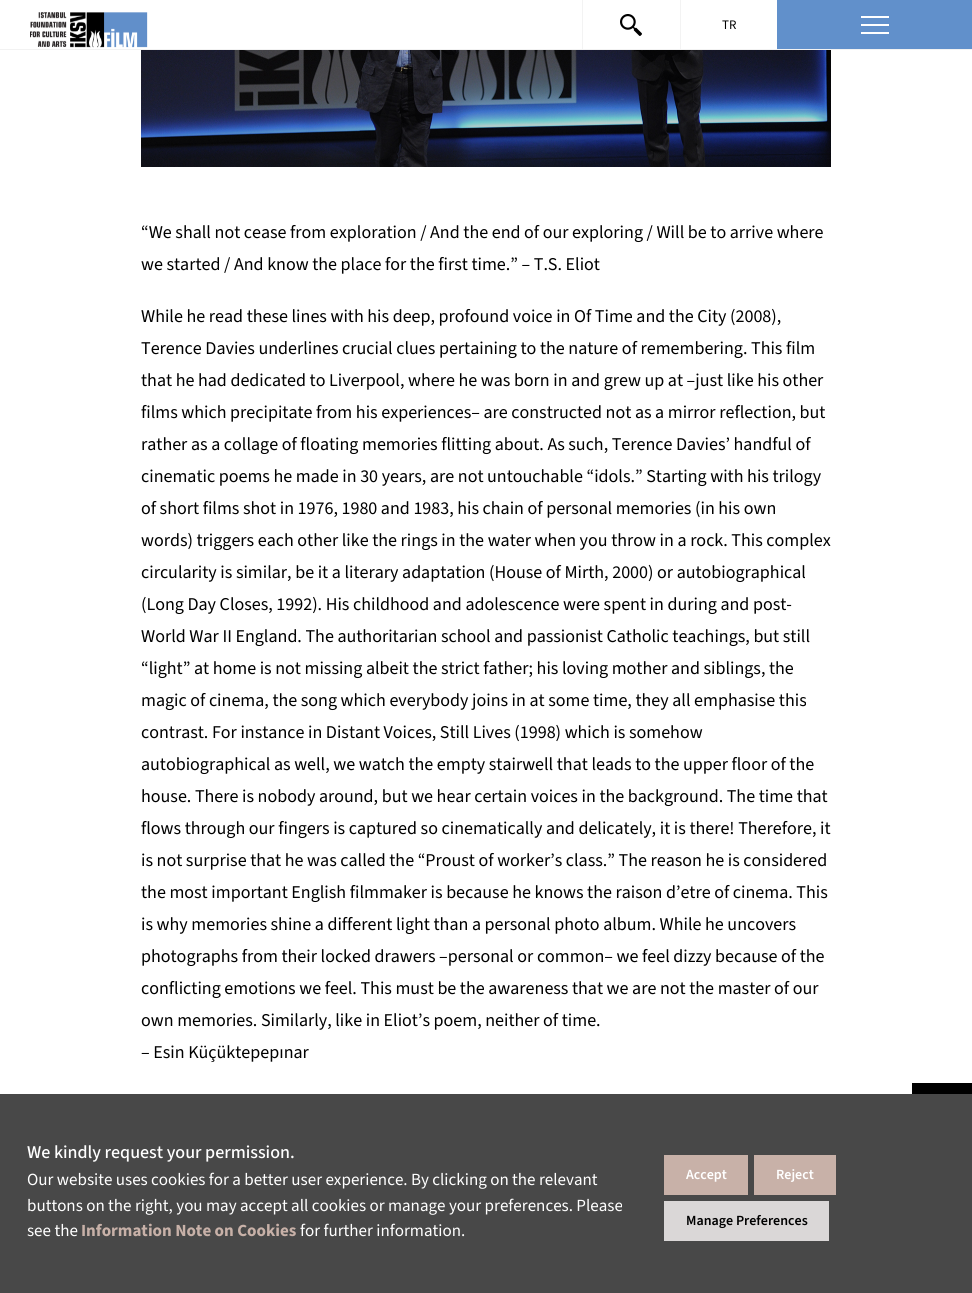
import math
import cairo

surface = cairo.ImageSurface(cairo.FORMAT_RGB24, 972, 1293)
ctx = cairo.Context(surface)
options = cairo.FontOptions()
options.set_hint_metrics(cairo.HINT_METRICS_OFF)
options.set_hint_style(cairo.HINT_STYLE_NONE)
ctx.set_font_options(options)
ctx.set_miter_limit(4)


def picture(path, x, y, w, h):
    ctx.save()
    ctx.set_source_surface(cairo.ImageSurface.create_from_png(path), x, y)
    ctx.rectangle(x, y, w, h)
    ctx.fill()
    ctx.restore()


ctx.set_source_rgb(1, 1, 1)
ctx.paint()
ctx.set_source_rgb(0.949, 0.949, 0.949)
ctx.rectangle(0, 49, 972, 1)
ctx.fill()
picture("img1.png", 30, 12, 118, 36)
ctx.set_source_rgb(0.953, 0.953, 0.953)
ctx.rectangle(582, 0, 1, 49)
ctx.fill()
picture("img2.png", 620, 14, 22, 22)
ctx.rectangle(680, 0, 1, 49)
ctx.fill()
ctx.select_font_face("Source Sans 3")
ctx.set_font_size(13)
ctx.set_source_rgb(0, 0, 0)
ctx.move_to(722, 29)
ctx.show_text("TR")
ctx.set_source_rgb(0.38, 0.565, 0.796)
ctx.rectangle(777, 0, 195, 49)
ctx.fill()
ctx.set_source_rgb(1, 1, 1)
ctx.rectangle(861, 16, 28, 2)
ctx.fill()
ctx.rectangle(861, 24, 28, 2)
ctx.fill()
ctx.rectangle(861, 32, 28, 2)
ctx.fill()
picture("img3.png", 141, 50, 690, 117)
ctx.set_font_size(18)
ctx.set_source_rgb(0, 0, 0)
ctx.move_to(141, 238)
ctx.show_text("“We shall not cease from exploration / And the end of our exploring / Will be to arrive where")
ctx.move_to(141, 270)
ctx.show_text("we started / And know the place for the first time.” – T.S. Eliot")
ctx.move_to(141, 322)
ctx.show_text("While he read these lines with his deep, profound voice in Of Time and the City (2008),")
ctx.move_to(141, 354)
ctx.show_text("Terence Davies underlines crucial clues pertaining to the nature of remembering. This film")
ctx.move_to(141, 386)
ctx.show_text("that he had dedicated to Liverpool, where he was born in and grew up at –just like his other")
ctx.move_to(141, 418)
ctx.show_text("films which precipitate from his experiences– are constructed not as a mirror reflection, but")
ctx.move_to(141, 450)
ctx.show_text("rather as a collage of floating memories flitting about. As such, Terence Davies’ handful of")
ctx.move_to(141, 482)
ctx.show_text("cinematic poems he made in 30 years, are not untouchable “idols.” Starting with his trilogy")
ctx.move_to(141, 514)
ctx.show_text("of short films shot in 1976, 1980 and 1983, his chain of personal memories (in his own")
ctx.move_to(141, 546)
ctx.show_text("words) triggers each other like the rings in the water when you throw in a rock. This complex")
ctx.move_to(141, 578)
ctx.show_text("circularity is similar, be it a literary adaptation (House of Mirth, 2000) or autobiographical")
ctx.move_to(141, 610)
ctx.show_text("(Long Day Closes, 1992). His childhood and adolescence were spent in during and post-")
ctx.move_to(141, 642)
ctx.show_text("World War II England. The authoritarian school and passionist Catholic teachings, but still")
ctx.move_to(141, 674)
ctx.show_text("“light” at home is not missing albeit the strict father; his loving mother and siblings, the")
ctx.move_to(141, 706)
ctx.show_text("magic of cinema, the song which everybody joins in at some time, they all emphasise this")
ctx.move_to(141, 738)
ctx.show_text("contrast. For instance in Distant Voices, Still Lives (1998) which is somehow")
ctx.move_to(141, 770)
ctx.show_text("autobiographical as well, we watch the empty stairwell that leads to the upper floor of the")
ctx.move_to(141, 802)
ctx.show_text("house. There is nobody around, but we hear certain voices in the background. The time that")
ctx.move_to(141, 834)
ctx.show_text("flows through our fingers is captured so cinematically and delicately, it is there! Therefore, it")
ctx.move_to(141, 866)
ctx.show_text("is not surprise that he was called the “Proust of worker’s class.” The reason he is considered")
ctx.move_to(141, 898)
ctx.show_text("the most important English filmmaker is because he knows the raison d’etre of cinema. This")
ctx.move_to(141, 930)
ctx.show_text("is why memories shine a different light than a personal photo album. While he uncovers")
ctx.move_to(141, 962)
ctx.show_text("photographs from their locked drawers –personal or common– we feel dizzy because of the")
ctx.move_to(141, 994)
ctx.show_text("conflicting emotions we feel. This must be the awareness that we are not the master of our")
ctx.move_to(141, 1026)
ctx.show_text("own memories. Similarly, like in Eliot’s poem, neither of time.")
ctx.move_to(141, 1058)
ctx.show_text("– Esin Küçüktepepınar")
picture("img4.png", 912, 1083, 60, 11)
ctx.set_source_rgb(0.282, 0.282, 0.282)
ctx.rectangle(0, 1094, 972, 199)
ctx.fill()
ctx.select_font_face("Source Sans 3 Medium")
ctx.set_source_rgb(1, 1, 1)
ctx.move_to(27, 1158)
ctx.show_text("We kindly request your permission.")
ctx.select_font_face("Source Sans 3")
ctx.set_font_size(17)
ctx.move_to(27, 1185)
ctx.show_text("Our website uses cookies for a better user experience. By clicking on the relevant")
ctx.move_to(27, 1211)
ctx.show_text("buttons on the right, you may accept all cookies or manage your preferences. Please")
ctx.move_to(27, 1236)
ctx.show_text("see the")
ctx.select_font_face("Source Sans 3", cairo.FONT_SLANT_NORMAL, cairo.FONT_WEIGHT_BOLD)
ctx.set_source_rgb(0.784, 0.694, 0.659)
ctx.move_to(81, 1236)
ctx.show_text("Information Note on Cookies")
ctx.select_font_face("Source Sans 3")
ctx.set_source_rgb(1, 1, 1)
ctx.move_to(300, 1236)
ctx.show_text("for further information.")
ctx.set_source_rgb(0.784, 0.694, 0.659)
ctx.rectangle(664, 1155, 84, 40)
ctx.fill()
ctx.select_font_face("Source Sans 3 SemiBold")
ctx.set_font_size(14)
ctx.set_source_rgb(1, 1, 1)
ctx.move_to(686, 1179)
ctx.show_text("Accept")
ctx.set_source_rgb(0.784, 0.694, 0.659)
ctx.rectangle(754, 1155, 82, 40)
ctx.fill()
ctx.set_source_rgb(1, 1, 1)
ctx.move_to(776, 1179)
ctx.show_text("Reject")
ctx.set_source_rgb(0.855, 0.843, 0.843)
ctx.rectangle(664, 1201, 165, 40)
ctx.fill()
ctx.set_source_rgb(0, 0, 0)
ctx.move_to(686, 1225)
ctx.show_text("Manage Preferences")
surface.write_to_png("page.png")
